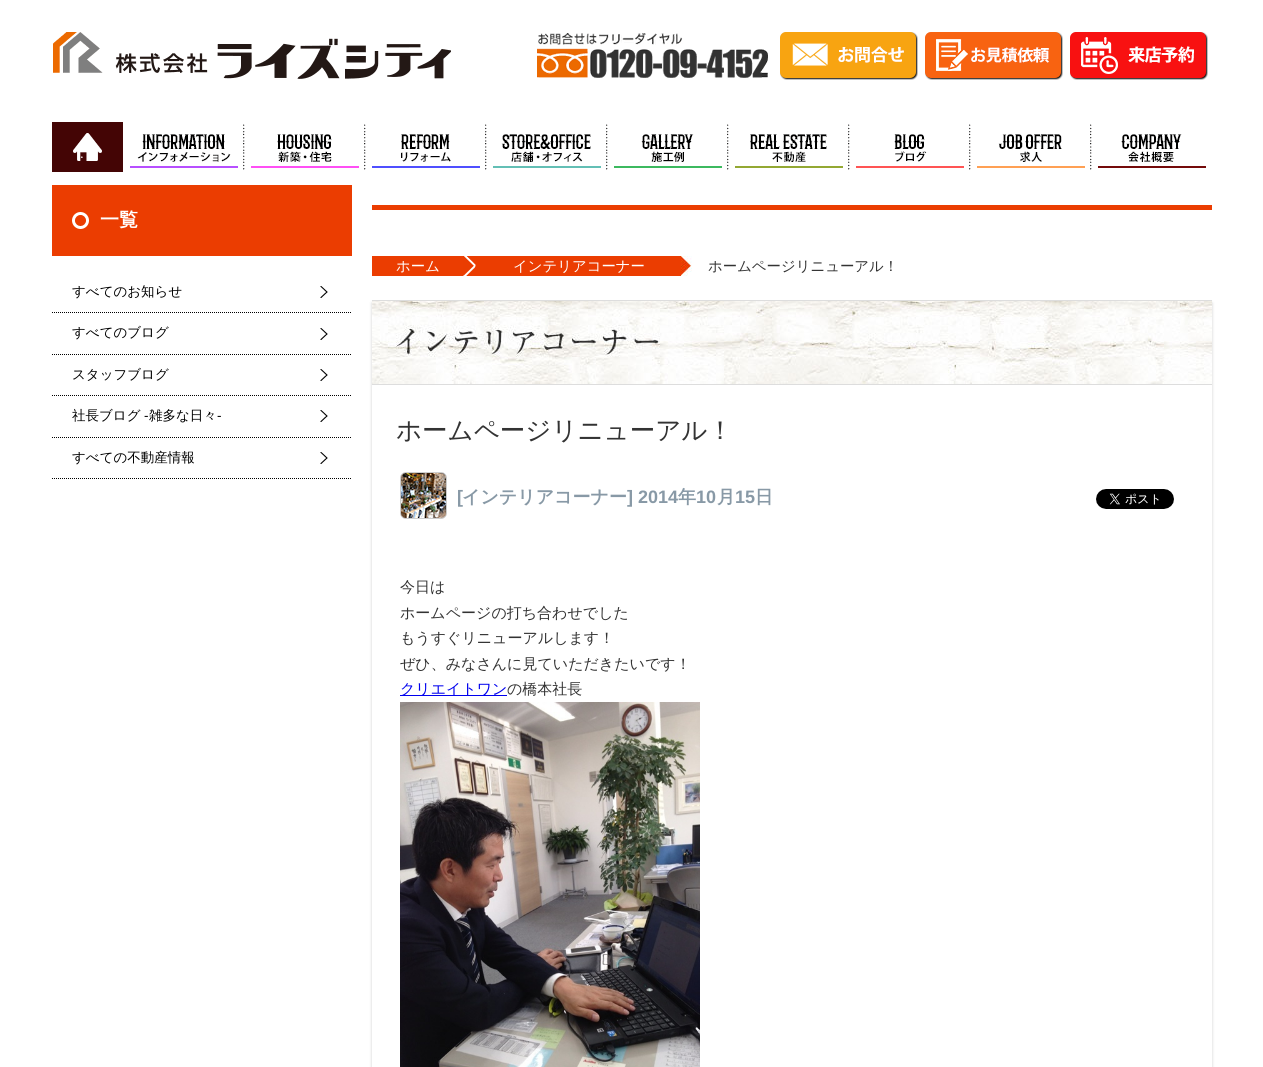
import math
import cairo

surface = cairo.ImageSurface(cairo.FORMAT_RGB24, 1263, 1067)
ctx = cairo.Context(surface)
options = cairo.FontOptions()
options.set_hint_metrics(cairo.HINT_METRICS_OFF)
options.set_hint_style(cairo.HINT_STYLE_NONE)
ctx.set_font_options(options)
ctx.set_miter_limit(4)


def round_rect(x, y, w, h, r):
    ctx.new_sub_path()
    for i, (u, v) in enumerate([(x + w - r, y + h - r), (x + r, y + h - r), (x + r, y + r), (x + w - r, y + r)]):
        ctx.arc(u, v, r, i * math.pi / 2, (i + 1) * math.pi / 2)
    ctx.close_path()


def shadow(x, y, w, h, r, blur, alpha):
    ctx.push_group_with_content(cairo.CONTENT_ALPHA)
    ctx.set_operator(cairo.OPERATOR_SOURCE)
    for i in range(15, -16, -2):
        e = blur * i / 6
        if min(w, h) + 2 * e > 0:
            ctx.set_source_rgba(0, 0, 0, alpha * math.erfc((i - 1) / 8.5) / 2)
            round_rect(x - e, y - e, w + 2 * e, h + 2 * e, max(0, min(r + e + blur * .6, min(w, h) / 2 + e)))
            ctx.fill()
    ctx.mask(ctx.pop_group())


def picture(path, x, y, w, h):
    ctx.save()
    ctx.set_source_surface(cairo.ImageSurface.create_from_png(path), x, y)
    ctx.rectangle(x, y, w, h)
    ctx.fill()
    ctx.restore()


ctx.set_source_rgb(1, 1, 1)
ctx.paint()
picture("img1.png", 53, 32, 398, 47)
picture("img2.png", 537, 33, 231, 45)
picture("img3.png", 780, 32, 138, 48)
picture("img4.png", 925, 32, 138, 48)
picture("img5.png", 1070, 32, 138, 48)
picture("img6.png", 52, 122, 71, 50)
picture("img7.png", 130, 124, 114, 46)
picture("img8.png", 244, 124, 121, 46)
picture("img9.png", 365, 124, 121, 46)
picture("img10.png", 486, 124, 121, 46)
picture("img11.png", 607, 124, 121, 46)
picture("img12.png", 728, 124, 121, 46)
picture("img13.png", 849, 124, 121, 46)
picture("img14.png", 970, 124, 121, 46)
picture("img15.png", 1091, 124, 115, 46)
ctx.set_source_rgb(0.918, 0.239, 0.004)
ctx.rectangle(52, 185, 300, 71)
ctx.fill()
picture("img16.png", 72, 212, 17, 17)
ctx.select_font_face("WenQuanYi Zen Hei", cairo.FONT_SLANT_NORMAL, cairo.FONT_WEIGHT_BOLD)
ctx.set_font_size(19)
ctx.set_source_rgb(1, 1, 1)
ctx.move_to(100, 226)
ctx.show_text("一覧")
picture("img17.png", 320, 286, 8, 12)
ctx.new_path()
ctx.move_to(52, 312.5)
ctx.line_to(352, 312.5)
ctx.set_source_rgb(0, 0, 0)
ctx.set_line_width(1)
ctx.set_dash([1, 1])
ctx.stroke()
ctx.select_font_face("WenQuanYi Zen Hei Medium")
ctx.set_font_size(13.5)
ctx.move_to(72, 296)
ctx.show_text("すべてのお知らせ")
picture("img17.png", 320, 328, 8, 12)
ctx.new_path()
ctx.move_to(52, 354.5)
ctx.line_to(352, 354.5)
ctx.stroke()
ctx.move_to(72, 337)
ctx.show_text("すべてのブログ")
picture("img17.png", 320, 369, 8, 12)
ctx.new_path()
ctx.move_to(52, 395.5)
ctx.line_to(352, 395.5)
ctx.stroke()
ctx.move_to(72, 379)
ctx.show_text("スタッフブログ")
picture("img17.png", 320, 410, 8, 12)
ctx.new_path()
ctx.move_to(52, 437.5)
ctx.line_to(352, 437.5)
ctx.stroke()
ctx.move_to(72, 420)
ctx.show_text("社長ブログ")
ctx.select_font_face("Liberation Sans")
ctx.move_to(144, 420)
ctx.show_text("-")
ctx.select_font_face("WenQuanYi Zen Hei Medium")
ctx.move_to(149, 420)
ctx.show_text("雑多な日々")
ctx.select_font_face("Liberation Sans")
ctx.move_to(217, 420)
ctx.show_text("-")
picture("img17.png", 320, 452, 8, 12)
ctx.new_path()
ctx.move_to(52, 478.5)
ctx.line_to(352, 478.5)
ctx.stroke()
ctx.select_font_face("WenQuanYi Zen Hei Medium")
ctx.move_to(72, 462)
ctx.show_text("すべての不動産情報")
ctx.set_source_rgb(0.918, 0.239, 0.004)
ctx.rectangle(372, 205, 840, 5)
ctx.fill()
ctx.rectangle(372, 256, 91, 20)
ctx.fill()
ctx.set_font_size(14.4)
ctx.set_source_rgb(1, 1, 1)
ctx.move_to(396, 271)
ctx.show_text("ホーム")
ctx.set_source_rgb(0.918, 0.239, 0.004)
ctx.rectangle(466, 256, 215, 20)
ctx.fill()
picture("img18.png", 463, 256, 13, 20)
ctx.set_source_rgb(1, 1, 1)
ctx.move_to(513, 271)
ctx.show_text("インテリアコーナー")
picture("img19.png", 681, 256, 11, 20)
ctx.set_source_rgb(0.2, 0.2, 0.2)
ctx.move_to(708, 271)
ctx.show_text("ホームページリニューアル！")
ctx.save()
ctx.set_fill_rule(cairo.FILL_RULE_EVEN_ODD)
ctx.new_path()
ctx.move_to(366, 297)
ctx.line_to(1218, 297)
ctx.line_to(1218, 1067)
ctx.line_to(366, 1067)
ctx.close_path()
ctx.move_to(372, 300)
ctx.line_to(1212, 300)
ctx.line_to(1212, 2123)
ctx.line_to(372, 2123)
ctx.close_path()
ctx.clip()
ctx.set_source_rgb(0, 0, 0)
shadow(372, 303, 840, 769, 0, 1.5, 0.2)
ctx.restore()
picture("img20.png", 372, 301, 840, 83)
ctx.set_source_rgb(0.867, 0.867, 0.867)
ctx.rectangle(372, 300, 840, 1)
ctx.fill()
ctx.rectangle(372, 384, 840, 1)
ctx.fill()
ctx.set_font_size(25.5)
ctx.set_source_rgb(0.2, 0.2, 0.2)
ctx.move_to(396, 439)
ctx.show_text("ホームページリニューアル！")
picture("img21.png", 400, 472, 47, 47)
ctx.select_font_face("Liberation Sans", cairo.FONT_SLANT_NORMAL, cairo.FONT_WEIGHT_BOLD)
ctx.set_font_size(18)
ctx.set_source_rgb(0.533, 0.6, 0.651)
ctx.move_to(457, 503)
ctx.show_text("[")
ctx.select_font_face("WenQuanYi Zen Hei", cairo.FONT_SLANT_NORMAL, cairo.FONT_WEIGHT_BOLD)
ctx.move_to(462, 503)
ctx.show_text("インテリアコーナー")
ctx.select_font_face("Liberation Sans", cairo.FONT_SLANT_NORMAL, cairo.FONT_WEIGHT_BOLD)
ctx.move_to(627, 503)
ctx.show_text("] 2014")
ctx.select_font_face("WenQuanYi Zen Hei", cairo.FONT_SLANT_NORMAL, cairo.FONT_WEIGHT_BOLD)
ctx.move_to(678, 503)
ctx.show_text("年")
ctx.select_font_face("Liberation Sans", cairo.FONT_SLANT_NORMAL, cairo.FONT_WEIGHT_BOLD)
ctx.move_to(696, 503)
ctx.show_text("10")
ctx.select_font_face("WenQuanYi Zen Hei", cairo.FONT_SLANT_NORMAL, cairo.FONT_WEIGHT_BOLD)
ctx.move_to(717, 503)
ctx.show_text("月")
ctx.select_font_face("Liberation Sans", cairo.FONT_SLANT_NORMAL, cairo.FONT_WEIGHT_BOLD)
ctx.move_to(735, 503)
ctx.show_text("15")
ctx.select_font_face("WenQuanYi Zen Hei", cairo.FONT_SLANT_NORMAL, cairo.FONT_WEIGHT_BOLD)
ctx.move_to(755, 503)
ctx.show_text("日")
picture("img22.png", 1096, 489, 78, 20)
ctx.select_font_face("WenQuanYi Zen Hei Medium")
ctx.set_font_size(15)
ctx.set_source_rgb(0.2, 0.2, 0.2)
ctx.move_to(400, 592)
ctx.show_text("今日は")
ctx.move_to(400, 618)
ctx.show_text("ホームページの打ち合わせでした")
ctx.move_to(400, 643)
ctx.show_text("もうすぐリニューアルします！")
ctx.move_to(400, 669)
ctx.show_text("ぜひ、みなさんに見ていただきたいです！")
ctx.set_source_rgb(0, 0, 0.933)
ctx.rectangle(400, 695, 107, 1)
ctx.fill()
ctx.move_to(400, 694)
ctx.show_text("クリエイトワン")
ctx.set_source_rgb(0.2, 0.2, 0.2)
ctx.move_to(507, 694)
ctx.show_text("の橋本社長")
picture("img23.png", 400, 702, 300, 365)
surface.write_to_png("page.png")
